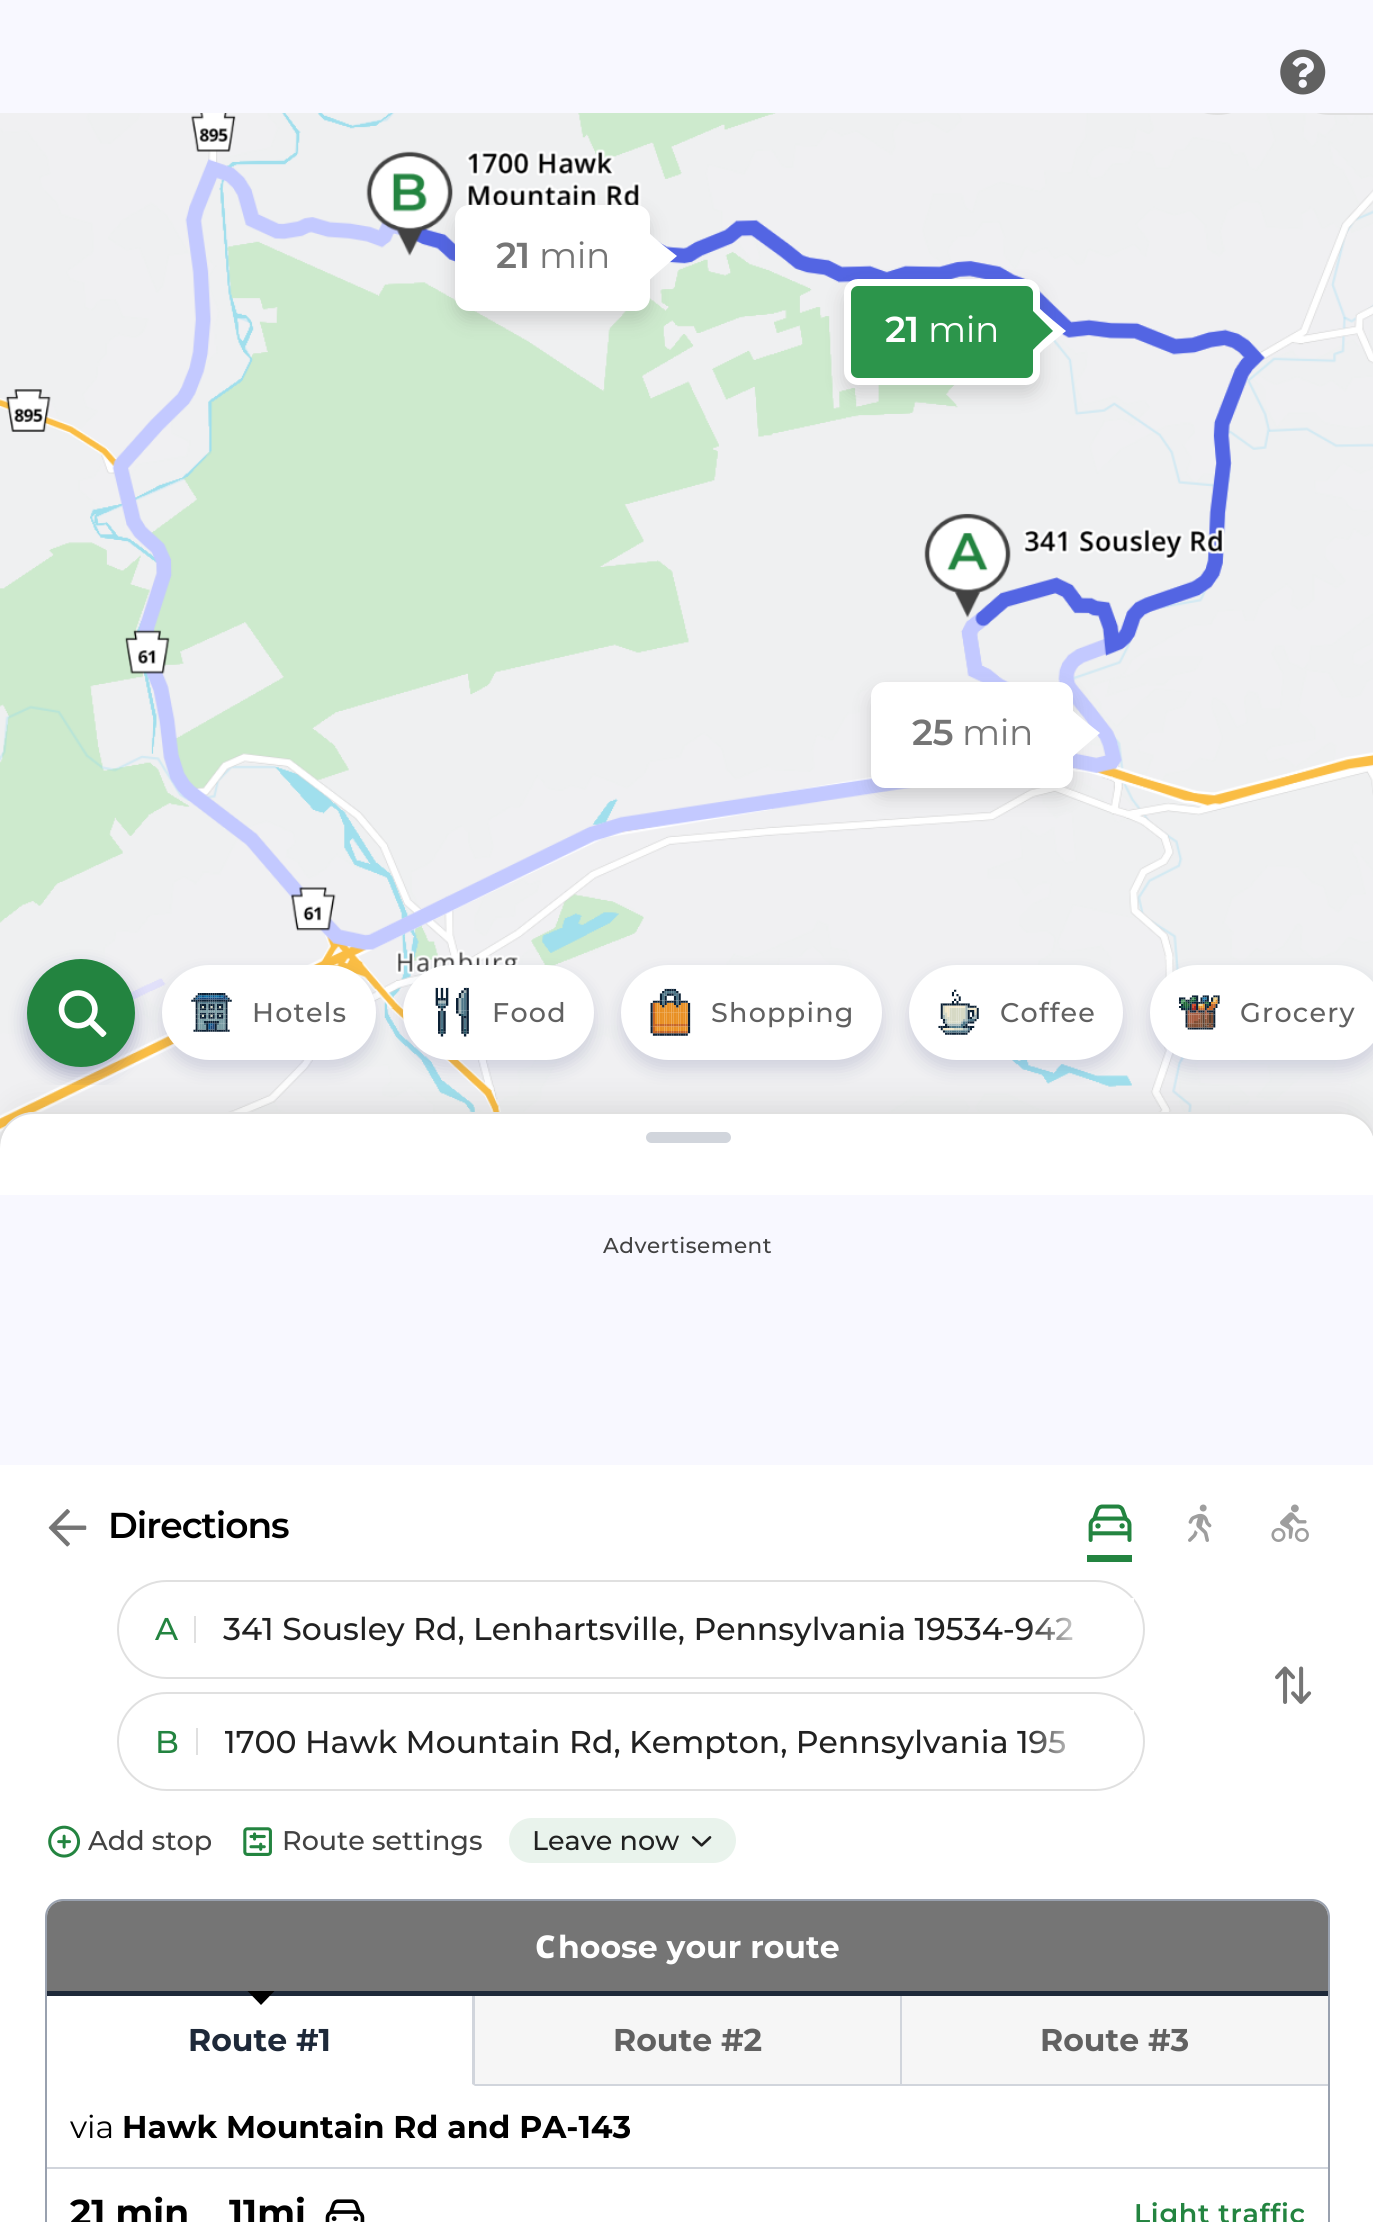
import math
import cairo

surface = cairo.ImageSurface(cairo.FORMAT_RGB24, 1373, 2222)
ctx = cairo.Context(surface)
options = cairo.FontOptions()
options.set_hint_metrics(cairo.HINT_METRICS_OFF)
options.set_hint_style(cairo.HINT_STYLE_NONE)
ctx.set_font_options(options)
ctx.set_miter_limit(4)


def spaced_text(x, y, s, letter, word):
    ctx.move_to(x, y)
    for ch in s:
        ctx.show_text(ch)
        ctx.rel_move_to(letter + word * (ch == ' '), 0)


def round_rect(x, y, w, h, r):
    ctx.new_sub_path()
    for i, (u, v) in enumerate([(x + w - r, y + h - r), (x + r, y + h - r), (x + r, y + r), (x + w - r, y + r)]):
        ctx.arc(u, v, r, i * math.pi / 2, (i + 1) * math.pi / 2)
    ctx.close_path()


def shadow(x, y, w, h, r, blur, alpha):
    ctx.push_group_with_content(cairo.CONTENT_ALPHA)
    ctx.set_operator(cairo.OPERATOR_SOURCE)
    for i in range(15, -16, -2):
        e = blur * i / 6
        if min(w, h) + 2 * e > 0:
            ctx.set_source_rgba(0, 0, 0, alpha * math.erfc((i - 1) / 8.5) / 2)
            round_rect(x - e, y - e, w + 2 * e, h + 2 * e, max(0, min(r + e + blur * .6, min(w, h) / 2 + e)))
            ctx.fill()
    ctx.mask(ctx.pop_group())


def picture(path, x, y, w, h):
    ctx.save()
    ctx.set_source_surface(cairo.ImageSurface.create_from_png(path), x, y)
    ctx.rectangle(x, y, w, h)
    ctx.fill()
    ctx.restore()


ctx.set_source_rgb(1, 1, 1)
ctx.paint()
picture("img2.png", 0, 113, 1373, 1035)
ctx.arc(1217.5, 67.5, 46.5, 0, 2 * math.pi)
ctx.set_source_rgb(0.878, 0.878, 0.878)
ctx.stroke()
ctx.new_path()
ctx.move_to(1330, 21)
ctx.line_to(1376, 21)
ctx.line_to(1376, 114)
ctx.line_to(1330, 114)
ctx.curve_to(1304.5, 114, 1284, 93.5, 1284, 68)
ctx.line_to(1284, 67)
ctx.curve_to(1284, 41.5, 1304.5, 21, 1330, 21)
ctx.close_path()
ctx.stroke()
ctx.set_source_rgb(0.969, 0.969, 1)
ctx.rectangle(0, 0, 1373, 113)
ctx.fill()
picture("img1.png", 1280, 49, 46, 46)
ctx.set_source_rgb(0.247, 0.247, 0.247)
shadow(455, 214, 195, 106, 14, 9, 0.2)
ctx.set_source_rgb(1, 1, 1)
round_rect(458.5, 208.5, 188, 99, 10.5)
ctx.fill_preserve()
ctx.set_line_width(7)
ctx.stroke()
ctx.select_font_face("Montserrat SemiBold")
ctx.set_font_size(36)
ctx.set_source_rgb(0.459, 0.459, 0.459)
spaced_text(496, 268, "21", -0.5, 0)
ctx.select_font_face("Montserrat")
spaced_text(539, 268, "min", -0.5, 0)
ctx.set_source_rgb(1, 1, 1)
ctx.new_path()
ctx.move_to(644, 230)
ctx.line_to(646, 230)
ctx.curve_to(649, 233, 657, 241, 677, 256)
ctx.line_to(656, 274)
ctx.line_to(644, 285)
ctx.close_path()
ctx.fill()
ctx.set_source_rgb(0.247, 0.247, 0.247)
shadow(844, 288, 196, 106, 14, 9, 0.2)
ctx.set_source_rgb(0.173, 0.584, 0.294)
round_rect(847.5, 282.5, 189, 99, 10.5)
ctx.fill_preserve()
ctx.set_source_rgb(1, 1, 1)
ctx.stroke()
ctx.select_font_face("Montserrat SemiBold")
spaced_text(885, 342, "21", -0.5, 0)
ctx.select_font_face("Montserrat")
spaced_text(928, 342, "min", -0.5, 0)
ctx.new_path()
ctx.move_to(1033, 304)
ctx.line_to(1035, 304)
ctx.curve_to(1038, 307, 1046, 315, 1066, 331)
ctx.line_to(1044, 349)
ctx.line_to(1033, 360)
ctx.close_path()
ctx.fill()
ctx.set_source_rgb(0.173, 0.584, 0.294)
ctx.new_path()
ctx.move_to(1031, 311)
ctx.line_to(1033, 311)
ctx.line_to(1053, 331)
ctx.curve_to(1037, 345, 1032, 351, 1031, 352)
ctx.close_path()
ctx.fill()
ctx.set_source_rgb(0.247, 0.247, 0.247)
shadow(871, 691, 202, 106, 14, 9, 0.2)
ctx.set_source_rgb(1, 1, 1)
round_rect(874.5, 685.5, 195, 99, 10.5)
ctx.fill_preserve()
ctx.stroke()
ctx.select_font_face("Montserrat SemiBold")
ctx.set_source_rgb(0.459, 0.459, 0.459)
spaced_text(912, 745, "25", -0.5, 0)
ctx.select_font_face("Montserrat")
spaced_text(962, 745, "min", -0.5, 0)
ctx.set_source_rgb(1, 1, 1)
ctx.new_path()
ctx.move_to(1067, 707)
ctx.line_to(1069, 707)
ctx.curve_to(1072, 710, 1080, 718, 1100, 733)
ctx.line_to(1079, 751)
ctx.line_to(1067, 762)
ctx.close_path()
ctx.fill()
ctx.save()
ctx.rectangle(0, 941, 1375, 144)
ctx.clip()
ctx.set_source_rgb(0.051, 0.086, 0.376)
shadow(27, 968, 108, 108, 54, 9, 0.3)
ctx.restore()
ctx.set_source_rgb(0.2, 0.2, 0.2)
shadow(0, 1103, 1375, 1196, 36, 13.5, 0.1)
ctx.set_source_rgb(0.137, 0.518, 0.251)
ctx.arc(81, 1013, 54, 0, 2 * math.pi)
ctx.fill()
picture("img3.png", 58, 990, 49, 47)
ctx.set_source_rgb(0.051, 0.086, 0.376)
shadow(162, 974, 214, 95, 47.5, 9, 0.15)
ctx.set_source_rgb(1, 1, 1)
round_rect(162, 965, 214, 95, 47.5)
ctx.fill()
picture("img4.png", 191, 993, 41, 39)
ctx.select_font_face("Montserrat Medium")
ctx.set_font_size(27)
ctx.set_source_rgb(0.38, 0.38, 0.38)
spaced_text(252, 1022, "Hotels", 1.25, 0)
ctx.set_source_rgb(0.051, 0.086, 0.376)
shadow(403, 974, 191, 95, 47.5, 9, 0.15)
ctx.set_source_rgb(1, 1, 1)
round_rect(403, 965, 191, 95, 47.5)
ctx.fill()
picture("img5.png", 435, 987, 34, 50)
ctx.set_source_rgb(0.38, 0.38, 0.38)
spaced_text(492, 1022, "Food", 1.25, 0)
ctx.set_source_rgb(0.051, 0.086, 0.376)
shadow(621, 974, 261, 95, 47.5, 9, 0.15)
ctx.set_source_rgb(1, 1, 1)
round_rect(621, 965, 261, 95, 47.5)
ctx.fill()
picture("img6.png", 650, 988, 41, 48)
ctx.set_source_rgb(0.38, 0.38, 0.38)
spaced_text(711, 1022, "Shopping", 1.25, 0)
ctx.set_source_rgb(0.051, 0.086, 0.376)
shadow(909, 974, 214, 95, 47.5, 9, 0.15)
ctx.set_source_rgb(1, 1, 1)
round_rect(909, 965, 214, 95, 47.5)
ctx.fill()
picture("img7.png", 938, 989, 41, 46)
ctx.set_source_rgb(0.38, 0.38, 0.38)
spaced_text(1000, 1022, "Coffee", 1.25, 0)
ctx.set_source_rgb(0.051, 0.086, 0.376)
shadow(1150, 974, 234, 95, 47.5, 9, 0.15)
ctx.set_source_rgb(1, 1, 1)
round_rect(1150, 965, 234, 95, 47.5)
ctx.fill()
picture("img8.png", 1178, 995, 42, 35)
ctx.set_source_rgb(0.38, 0.38, 0.38)
spaced_text(1240, 1022, "Grocery", 1.25, 0)
ctx.set_source_rgb(1, 1, 1)
ctx.new_path()
ctx.move_to(36, 1112)
ctx.line_to(1339, 1112)
ctx.curve_to(1359, 1112, 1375, 1128, 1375, 1148)
ctx.line_to(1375, 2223)
ctx.line_to(0, 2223)
ctx.line_to(0, 1148)
ctx.curve_to(0, 1128, 16, 1112, 36, 1112)
ctx.close_path()
ctx.fill()
ctx.set_source_rgb(0.878, 0.878, 0.878)
ctx.new_path()
ctx.move_to(34, 1112)
ctx.line_to(1341, 1112)
ctx.curve_to(1357, 1112, 1370, 1122, 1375, 1136)
ctx.line_to(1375, 1148)
ctx.curve_to(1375, 1129, 1360, 1114, 1341, 1114)
ctx.line_to(34, 1114)
ctx.curve_to(15, 1114, 0, 1129, 0, 1148)
ctx.line_to(0, 1136)
ctx.curve_to(5, 1122, 18, 1112, 34, 1112)
ctx.close_path()
ctx.fill()
ctx.set_source_rgb(0.82, 0.835, 0.863)
round_rect(646, 1132, 85, 11, 5.5)
ctx.fill()
ctx.set_source_rgb(0.969, 0.969, 1)
ctx.rectangle(0, 1195, 1373, 270)
ctx.fill()
ctx.set_font_size(21.5)
ctx.set_source_rgb(0.259, 0.259, 0.259)
spaced_text(603, 1253, "Advertisement", 0.5, 0)
picture("img9.png", 48, 1509, 39, 38)
ctx.select_font_face("Montserrat SemiBold")
ctx.set_font_size(36)
ctx.set_source_rgb(0, 0, 0)
spaced_text(108, 1538, "Directions", -1, 0)
ctx.set_source_rgb(0.137, 0.518, 0.251)
ctx.rectangle(1087, 1555, 45, 7)
ctx.fill()
picture("img10.png", 1088, 1504, 44, 38)
picture("img11.png", 1188, 1504, 24, 38)
picture("img12.png", 1271, 1504, 38, 38)
round_rect(118, 1581, 1026, 97, 48.5)
ctx.set_source_rgb(0.878, 0.878, 0.878)
ctx.set_line_width(2)
ctx.stroke()
ctx.select_font_face("Montserrat Medium")
ctx.set_font_size(31.5)
ctx.set_source_rgb(0.137, 0.518, 0.251)
ctx.move_to(155, 1640)
ctx.show_text("A")
ctx.set_source_rgb(0.878, 0.878, 0.878)
ctx.rectangle(194, 1616, 2, 27)
ctx.fill()
ctx.set_source_rgb(0.129, 0.129, 0.129)
ctx.move_to(223, 1640)
ctx.show_text("341 Sousley Rd, Lenhartsville, Pennsylvania 19534-942")
gradient = cairo.LinearGradient(1134, 1629, 1026, 1629)
gradient.add_color_stop_rgba(0, 1, 1, 1, 1)
gradient.add_color_stop_rgba(0.6, 1, 1, 1, 0.7)
gradient.add_color_stop_rgba(1, 1, 1, 1, 0)
ctx.set_source(gradient)
ctx.rectangle(1027, 1598, 107, 60)
ctx.fill()
picture("img13.png", 1275, 1666, 37, 38)
round_rect(118, 1693, 1026, 97, 48.5)
ctx.set_source_rgb(0.878, 0.878, 0.878)
ctx.stroke()
ctx.set_source_rgb(0.137, 0.518, 0.251)
ctx.move_to(155, 1753)
ctx.show_text("B")
ctx.set_source_rgb(0.878, 0.878, 0.878)
ctx.rectangle(196, 1728, 2, 27)
ctx.fill()
ctx.save()
ctx.rectangle(225, 1721, 891, 41)
ctx.clip()
ctx.set_source_rgb(0.129, 0.129, 0.129)
ctx.move_to(224, 1753)
ctx.show_text("1700 Hawk Mountain Rd, Kempton, Pennsylvania 195")
ctx.restore()
gradient = cairo.LinearGradient(1134, 1741, 1026, 1741)
gradient.add_color_stop_rgba(0, 1, 1, 1, 1)
gradient.add_color_stop_rgba(0.6, 1, 1, 1, 0.7)
gradient.add_color_stop_rgba(1, 1, 1, 1, 0)
ctx.set_source(gradient)
ctx.rectangle(1029, 1710, 105, 61)
ctx.fill()
picture("img14.png", 48, 1825, 33, 33)
ctx.set_font_size(27)
ctx.set_source_rgb(0.259, 0.259, 0.259)
ctx.move_to(88, 1850)
ctx.show_text("Add stop")
picture("img15.png", 243, 1827, 29, 29)
ctx.move_to(282, 1850)
ctx.show_text("Route settings")
ctx.set_source_rgb(0.914, 0.953, 0.925)
round_rect(509, 1818, 227, 45, 22.5)
ctx.fill()
ctx.set_source_rgb(0.129, 0.129, 0.129)
ctx.move_to(532, 1850)
ctx.show_text("Leave now")
picture("img16.png", 691, 1836, 21, 11)
ctx.set_source_rgb(0.6, 0.631, 0.686)
ctx.new_path()
ctx.move_to(63, 1899)
ctx.curve_to(53, 1899, 45, 1907, 45, 1917)
ctx.line_to(45, 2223)
ctx.line_to(47, 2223)
ctx.line_to(47, 1917)
ctx.curve_to(47, 1908, 54, 1901, 63, 1901)
ctx.line_to(1312, 1901)
ctx.curve_to(1321, 1901, 1328, 1908, 1328, 1917)
ctx.line_to(1328, 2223)
ctx.line_to(1330, 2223)
ctx.line_to(1330, 1917)
ctx.curve_to(1330, 1907, 1322, 1899, 1312, 1899)
ctx.close_path()
ctx.fill()
ctx.set_source_rgb(0.459, 0.459, 0.459)
ctx.new_path()
ctx.move_to(63, 1901)
ctx.line_to(1312, 1901)
ctx.curve_to(1321, 1901, 1328, 1908, 1328, 1917)
ctx.line_to(1328, 1991)
ctx.line_to(47, 1991)
ctx.line_to(47, 1917)
ctx.curve_to(47, 1908, 54, 1901, 63, 1901)
ctx.close_path()
ctx.fill()
ctx.select_font_face("Noto Sans Black")
ctx.set_font_size(31.5)
ctx.set_source_rgb(1, 1, 1)
ctx.move_to(535, 1958)
ctx.show_text("C")
ctx.select_font_face("Montserrat", cairo.FONT_SLANT_NORMAL, cairo.FONT_WEIGHT_BOLD)
ctx.move_to(558, 1958)
ctx.show_text("hoose your route")
ctx.set_source_rgb(0.118, 0.161, 0.224)
ctx.rectangle(47, 1991, 1281, 5)
ctx.fill()
ctx.set_source_rgb(0, 0, 0)
ctx.new_path()
ctx.move_to(247.5, 1991)
ctx.line_to(274.5, 1991)
ctx.line_to(261, 2005)
ctx.close_path()
ctx.fill()
ctx.set_source_rgb(0.82, 0.835, 0.863)
ctx.new_path()
ctx.move_to(475, 1996)
ctx.line_to(475, 2086)
ctx.line_to(472, 2084)
ctx.line_to(472, 1996)
ctx.close_path()
ctx.fill()
ctx.set_source_rgb(0.118, 0.161, 0.224)
ctx.move_to(188, 2051)
ctx.show_text("Route #1")
ctx.set_source_rgb(0.961, 0.961, 0.961)
ctx.rectangle(475, 1996, 425, 88)
ctx.fill()
ctx.set_source_rgb(0.82, 0.835, 0.863)
ctx.rectangle(475, 2084, 853, 2)
ctx.fill()
ctx.set_source_rgb(0.38, 0.38, 0.38)
ctx.move_to(613, 2051)
ctx.show_text("Route #2")
ctx.set_source_rgb(0.961, 0.961, 0.961)
ctx.rectangle(902, 1996, 426, 88)
ctx.fill()
ctx.set_source_rgb(0.82, 0.835, 0.863)
ctx.rectangle(900, 1996, 2, 90)
ctx.fill()
ctx.set_source_rgb(0.38, 0.38, 0.38)
ctx.move_to(1040, 2051)
ctx.show_text("Route #3")
ctx.set_source_rgb(0.82, 0.835, 0.863)
ctx.rectangle(47, 2167, 1281, 2)
ctx.fill()
ctx.select_font_face("Montserrat")
ctx.set_source_rgb(0, 0, 0)
ctx.move_to(70, 2138)
ctx.show_text("via")
ctx.select_font_face("Montserrat", cairo.FONT_SLANT_NORMAL, cairo.FONT_WEIGHT_BOLD)
ctx.move_to(122, 2138)
ctx.show_text("Hawk Mountain Rd and PA-143")
ctx.set_font_size(36)
ctx.move_to(70, 2225)
ctx.show_text("21 min")
ctx.move_to(229, 2225)
ctx.show_text("11mi")
picture("img17.png", 325, 2199, 40, 23)
ctx.select_font_face("Montserrat SemiBold")
ctx.set_font_size(27)
ctx.set_source_rgb(0.137, 0.518, 0.251)
spaced_text(1134, 2223, "Light traffic", 0.7, 0)
surface.write_to_png("page.png")
